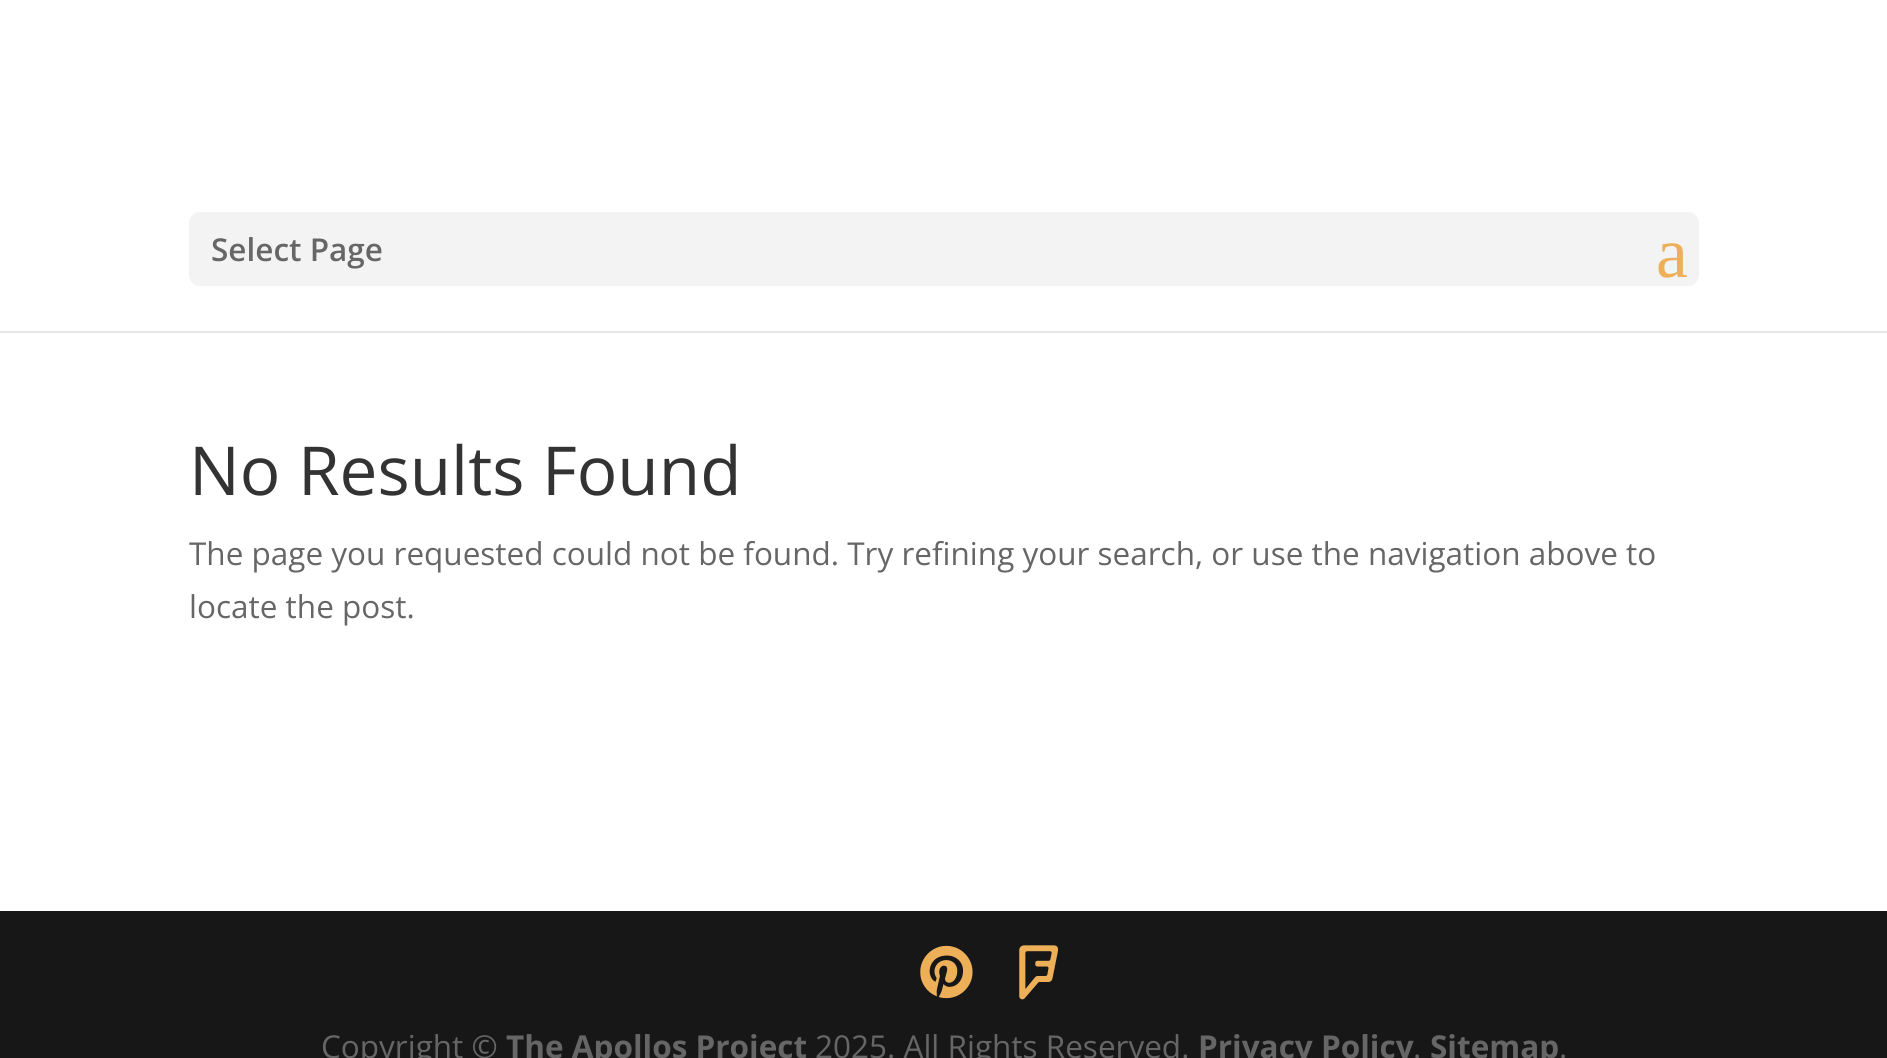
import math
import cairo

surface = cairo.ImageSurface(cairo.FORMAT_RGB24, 1887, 1058)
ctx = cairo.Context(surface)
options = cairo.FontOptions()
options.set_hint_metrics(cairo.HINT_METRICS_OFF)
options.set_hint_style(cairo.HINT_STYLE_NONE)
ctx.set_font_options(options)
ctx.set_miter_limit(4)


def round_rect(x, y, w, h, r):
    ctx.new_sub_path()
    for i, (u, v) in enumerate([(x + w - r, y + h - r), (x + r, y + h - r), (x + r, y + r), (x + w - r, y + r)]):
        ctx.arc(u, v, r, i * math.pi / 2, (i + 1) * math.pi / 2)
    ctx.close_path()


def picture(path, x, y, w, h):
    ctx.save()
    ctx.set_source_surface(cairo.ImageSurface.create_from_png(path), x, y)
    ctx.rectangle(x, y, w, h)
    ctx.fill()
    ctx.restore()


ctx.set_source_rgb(1, 1, 1)
ctx.paint()
ctx.set_source_rgb(0.902, 0.902, 0.902)
ctx.new_path()
ctx.move_to(0, 331)
ctx.line_to(0, 333)
ctx.line_to(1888, 333)
ctx.line_to(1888, 2)
ctx.line_to(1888, 331)
ctx.close_path()
ctx.fill()
ctx.set_source_rgb(0.953, 0.953, 0.953)
round_rect(189, 212, 1510, 74, 11)
ctx.fill()
ctx.select_font_face("Open Sans SemiBold")
ctx.set_font_size(31.5)
ctx.set_source_rgb(0.4, 0.4, 0.4)
ctx.move_to(211, 261)
ctx.show_text("Select Page")
ctx.select_font_face("Liberation Serif")
ctx.set_font_size(72)
ctx.set_source_rgb(0.929, 0.69, 0.349)
ctx.move_to(1656, 277)
ctx.show_text("a")
ctx.select_font_face("Open Sans")
ctx.set_font_size(67.5)
ctx.set_source_rgb(0.2, 0.2, 0.2)
ctx.move_to(189, 495)
ctx.show_text("No Results Found")
ctx.set_font_size(31.5)
ctx.set_source_rgb(0.4, 0.4, 0.4)
ctx.move_to(189, 565)
ctx.show_text("The page you requested could not be found. Try refining your search, or use the navigation above to")
ctx.move_to(189, 618)
ctx.show_text("locate the post.")
ctx.set_source_rgb(0.09, 0.09, 0.09)
ctx.rectangle(0, 911, 1887, 147)
ctx.fill()
picture("img1.png", 920, 945, 53, 54)
picture("img2.png", 1019, 945, 39, 55)
ctx.set_source_rgb(0.4, 0.4, 0.4)
ctx.move_to(321, 1058)
ctx.show_text("Copyright ©")
ctx.select_font_face("Open Sans", cairo.FONT_SLANT_NORMAL, cairo.FONT_WEIGHT_BOLD)
ctx.move_to(506, 1058)
ctx.show_text("The Apollos Project")
ctx.select_font_face("Open Sans")
ctx.move_to(815, 1058)
ctx.show_text("2025. All Rights Reserved.")
ctx.select_font_face("Open Sans", cairo.FONT_SLANT_NORMAL, cairo.FONT_WEIGHT_BOLD)
ctx.move_to(1198, 1058)
ctx.show_text("Privacy Policy")
ctx.select_font_face("Open Sans")
ctx.move_to(1413, 1058)
ctx.show_text(".")
ctx.select_font_face("Open Sans", cairo.FONT_SLANT_NORMAL, cairo.FONT_WEIGHT_BOLD)
ctx.move_to(1430, 1058)
ctx.show_text("Sitemap")
ctx.select_font_face("Open Sans")
ctx.move_to(1559, 1058)
ctx.show_text(".")
surface.write_to_png("page.png")
